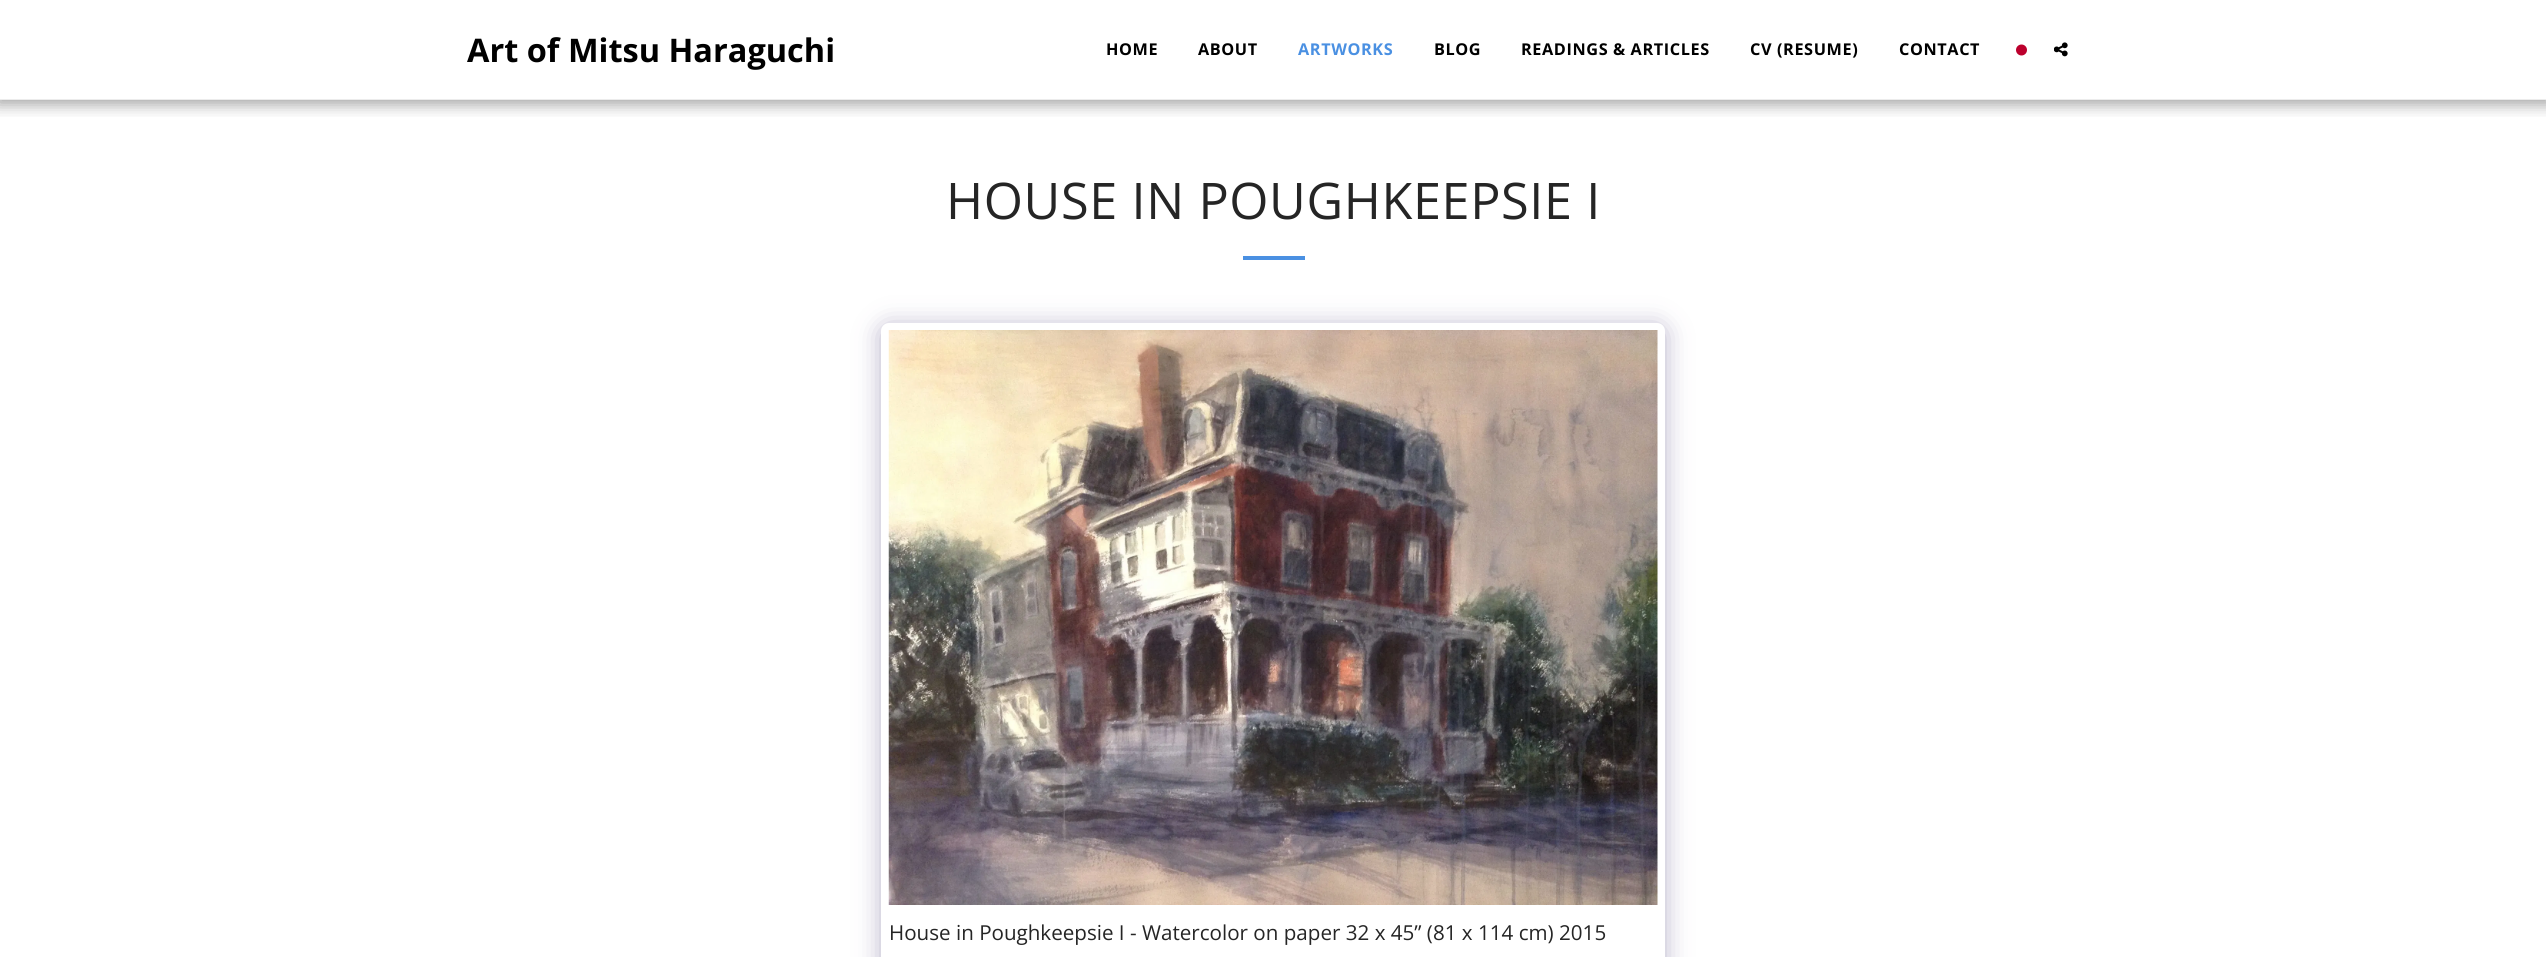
import math
import cairo

surface = cairo.ImageSurface(cairo.FORMAT_RGB24, 2546, 957)
ctx = cairo.Context(surface)
options = cairo.FontOptions()
options.set_hint_metrics(cairo.HINT_METRICS_OFF)
options.set_hint_style(cairo.HINT_STYLE_NONE)
ctx.set_font_options(options)
ctx.set_miter_limit(4)


def spaced_text(x, y, s, letter, word):
    ctx.move_to(x, y)
    for ch in s:
        ctx.show_text(ch)
        ctx.rel_move_to(letter + word * (ch == ' '), 0)


def round_rect(x, y, w, h, r):
    ctx.new_sub_path()
    for i, (u, v) in enumerate([(x + w - r, y + h - r), (x + r, y + h - r), (x + r, y + r), (x + w - r, y + r)]):
        ctx.arc(u, v, r, i * math.pi / 2, (i + 1) * math.pi / 2)
    ctx.close_path()


def shadow(x, y, w, h, r, blur, alpha):
    ctx.push_group_with_content(cairo.CONTENT_ALPHA)
    ctx.set_operator(cairo.OPERATOR_SOURCE)
    for i in range(15, -16, -2):
        e = blur * i / 6
        if min(w, h) + 2 * e > 0:
            ctx.set_source_rgba(0, 0, 0, alpha * math.erfc((i - 1) / 8.5) / 2)
            round_rect(x - e, y - e, w + 2 * e, h + 2 * e, max(0, min(r + e + blur * .6, min(w, h) / 2 + e)))
            ctx.fill()
    ctx.mask(ctx.pop_group())


def picture(path, x, y, w, h):
    ctx.save()
    ctx.set_source_surface(cairo.ImageSurface.create_from_png(path), x, y)
    ctx.rectangle(x, y, w, h)
    ctx.fill()
    ctx.restore()


ctx.set_source_rgb(1, 1, 1)
ctx.paint()
ctx.save()
ctx.rectangle(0, 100, 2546, 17)
ctx.clip()
ctx.set_source_rgb(0, 0, 0)
shadow(-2, 0, 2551, 105, 0, 7.5, 0.35)
ctx.restore()
ctx.set_source_rgb(0.922, 0.922, 0.922)
ctx.rectangle(0, 99, 2546, 1)
ctx.fill()
ctx.select_font_face("Open Sans", cairo.FONT_SLANT_NORMAL, cairo.FONT_WEIGHT_BOLD)
ctx.set_font_size(32.5)
ctx.set_source_rgb(0, 0, 0)
ctx.move_to(467, 62)
ctx.show_text("Art of Mitsu Haraguchi")
ctx.set_font_size(16.25)
spaced_text(1106, 55, "HOME", 0.6, 0)
spaced_text(1198, 55, "ABOUT", 0.6, 0)
ctx.set_source_rgb(0.29, 0.565, 0.886)
spaced_text(1298, 55, "ARTWORKS", 0.6, 0)
ctx.set_source_rgb(0, 0, 0)
spaced_text(1434, 55, "BLOG", 0.6, 0)
spaced_text(1521, 55, "READINGS & ARTICLES", 0.6, 0)
spaced_text(1750, 55, "CV (RESUME)", 0.6, 0)
spaced_text(1899, 55, "CONTACT", 0.6, 0)
ctx.set_source_rgb(0.737, 0, 0.176)
ctx.new_path()
ctx.arc(2021.5, 50, 5.5, 0, 2 * math.pi)
ctx.fill()
picture("img1.png", 2054, 42, 14, 15)
ctx.select_font_face("Open Sans")
ctx.set_font_size(50.4)
ctx.set_source_rgb(0.145, 0.145, 0.145)
spaced_text(946, 219, "HOUSE IN POUGHKEEPSIE I", 0.6, 0)
ctx.set_source_rgb(0.29, 0.565, 0.886)
ctx.rectangle(1243, 256, 62, 4)
ctx.fill()
ctx.set_source_rgb(0.302, 0.247, 0.478)
shadow(881, 326, 784, 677, 8, 12.5, 0.4)
ctx.set_source_rgb(1, 1, 1)
round_rect(881, 323, 784, 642, 8)
ctx.fill()
picture("img2.png", 888, 330, 770, 575)
ctx.set_font_size(20.6)
ctx.set_source_rgb(0.145, 0.145, 0.145)
ctx.move_to(889, 940)
ctx.show_text("House in Poughkeepsie I - Watercolor on paper 32 x 45” (81 x 114 cm) 2015")
surface.write_to_png("page.png")
